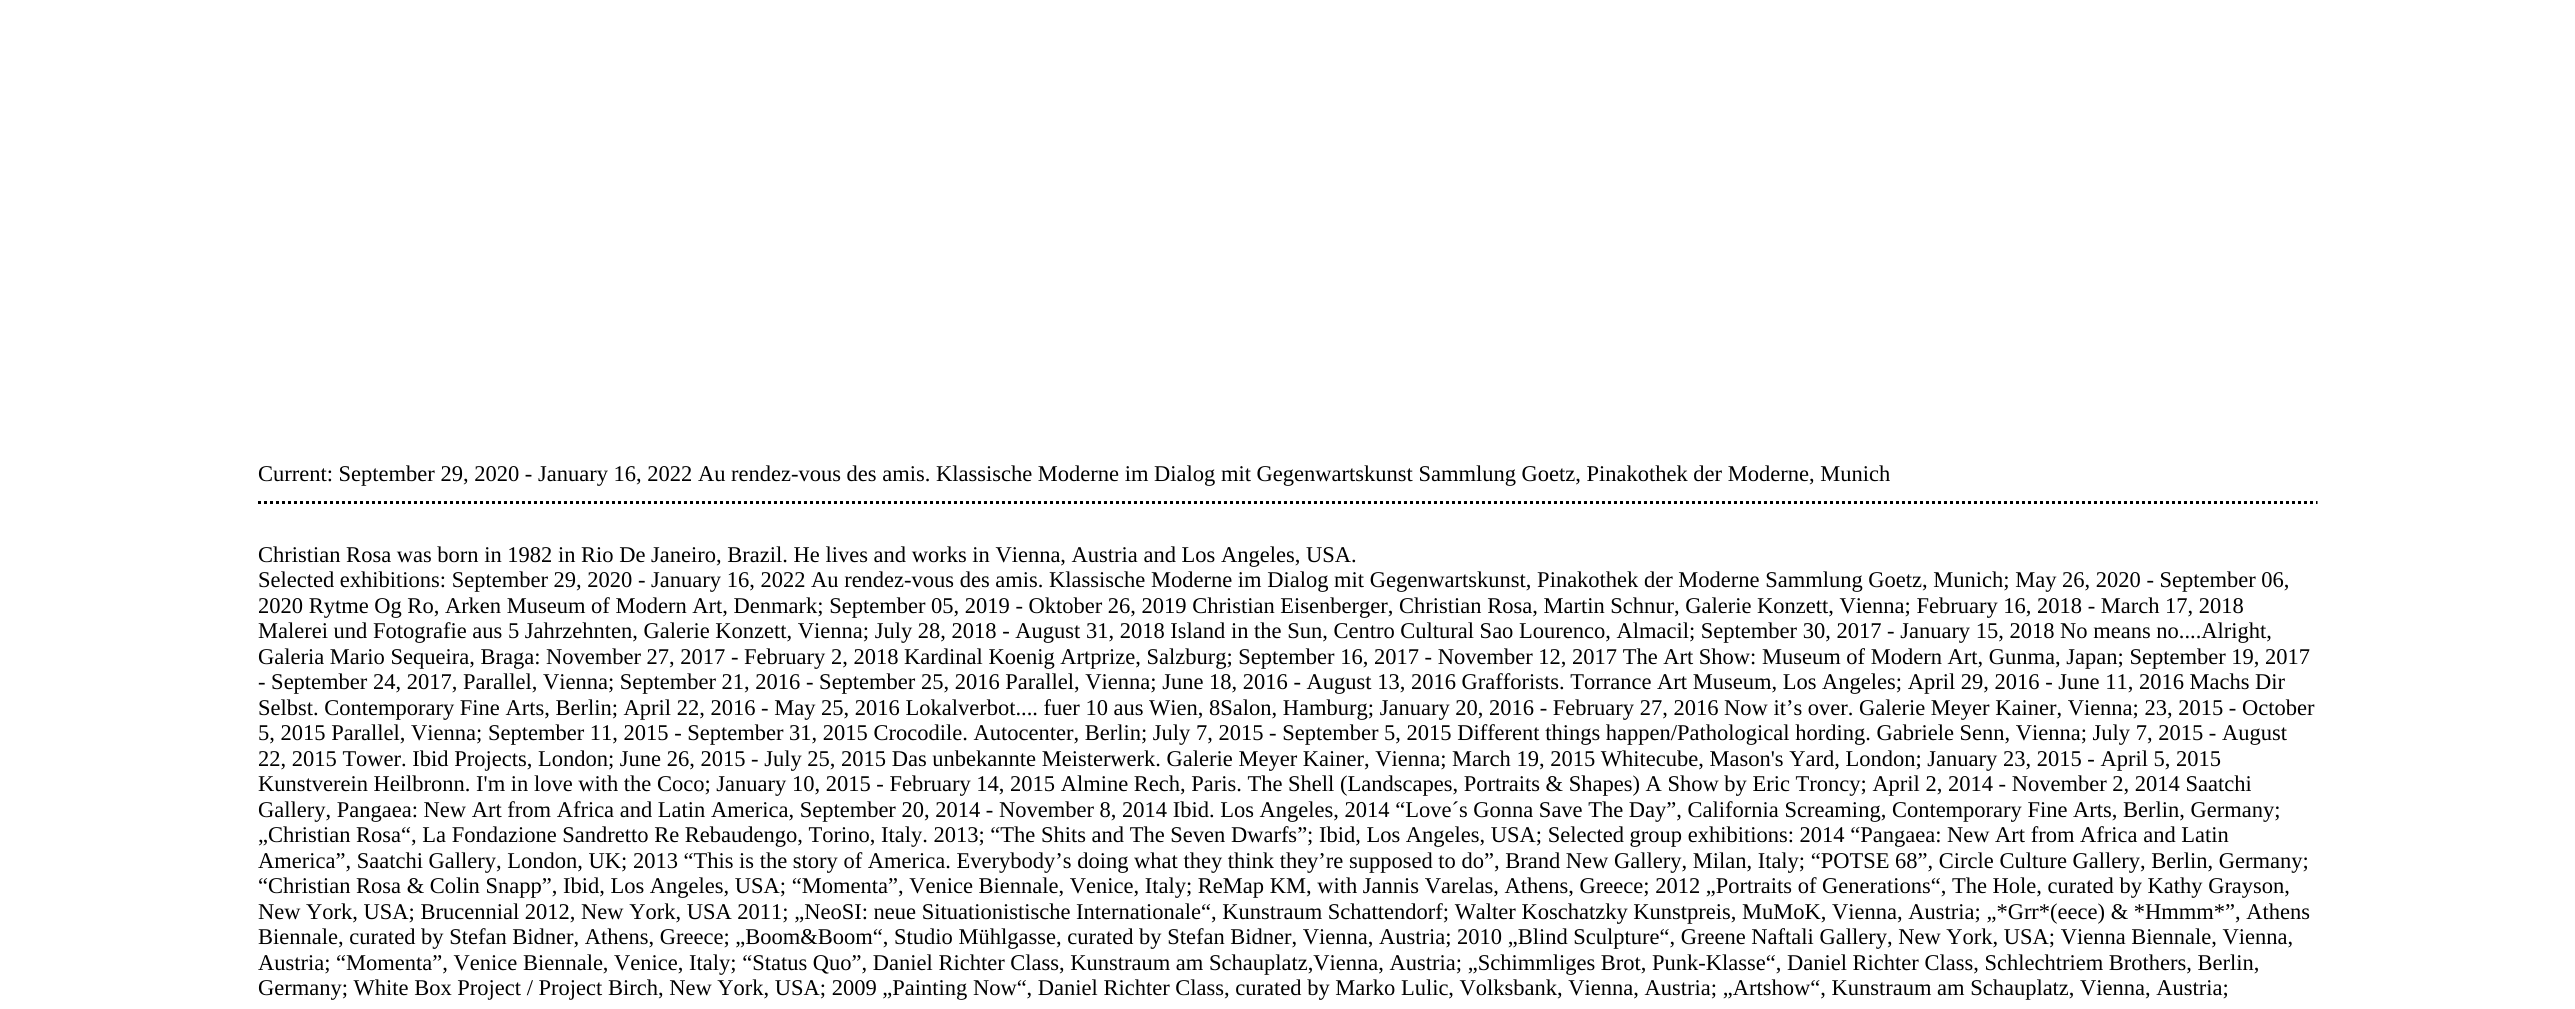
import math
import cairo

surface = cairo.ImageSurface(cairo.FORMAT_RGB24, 2575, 1009)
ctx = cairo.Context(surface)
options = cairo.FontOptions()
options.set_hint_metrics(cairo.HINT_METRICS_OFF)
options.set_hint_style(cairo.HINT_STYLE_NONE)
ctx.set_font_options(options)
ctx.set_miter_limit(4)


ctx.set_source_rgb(1, 1, 1)
ctx.paint()
ctx.select_font_face("Liberation Serif")
ctx.set_font_size(22.5)
ctx.set_source_rgb(0, 0, 0)
ctx.move_to(258, 481)
ctx.show_text("Current: September 29, 2020 - January 16, 2022 Au rendez-vous des amis. Klassische Moderne im Dialog mit Gegenwartskunst Sammlung Goetz, Pinakothek der Moderne, Munich")
ctx.new_path()
ctx.move_to(258, 502.5)
ctx.line_to(2317.5, 502.5)
ctx.set_line_width(3)
ctx.set_dash([3, 3])
ctx.stroke()
ctx.move_to(258, 562)
ctx.show_text("Christian Rosa was born in 1982 in Rio De Janeiro, Brazil. He lives and works in Vienna, Austria and Los Angeles, USA.")
ctx.move_to(258, 587)
ctx.show_text("Selected exhibitions: September 29, 2020 - January 16, 2022 Au rendez-vous des amis. Klassische Moderne im Dialog mit Gegenwartskunst, Pinakothek der Moderne Sammlung Goetz, Munich; May 26, 2020 - September 06,")
ctx.move_to(258, 613)
ctx.show_text("2020 Rytme Og Ro, Arken Museum of Modern Art, Denmark; September 05, 2019 - Oktober 26, 2019 Christian Eisenberger, Christian Rosa, Martin Schnur, Galerie Konzett, Vienna; February 16, 2018 - March 17, 2018")
ctx.move_to(258, 638)
ctx.show_text("Malerei und Fotografie aus 5 Jahrzehnten, Galerie Konzett, Vienna; July 28, 2018 - August 31, 2018 Island in the Sun, Centro Cultural Sao Lourenco, Almacil; September 30, 2017 - January 15, 2018 No means no....Alright,")
ctx.move_to(258, 664)
ctx.show_text("Galeria Mario Sequeira, Braga: November 27, 2017 - February 2, 2018 Kardinal Koenig Artprize, Salzburg; September 16, 2017 - November 12, 2017 The Art Show: Museum of Modern Art, Gunma, Japan; September 19, 2017")
ctx.move_to(258, 689)
ctx.show_text("- September 24, 2017, Parallel, Vienna; September 21, 2016 - September 25, 2016 Parallel, Vienna; June 18, 2016 - August 13, 2016 Grafforists. Torrance Art Museum, Los Angeles; April 29, 2016 - June 11, 2016 Machs Dir")
ctx.move_to(258, 715)
ctx.show_text("Selbst. Contemporary Fine Arts, Berlin; April 22, 2016 - May 25, 2016 Lokalverbot.... fuer 10 aus Wien, 8Salon, Hamburg; January 20, 2016 - February 27, 2016 Now it’s over. Galerie Meyer Kainer, Vienna; 23, 2015 - October")
ctx.move_to(258, 740)
ctx.show_text("5, 2015 Parallel, Vienna; September 11, 2015 - September 31, 2015 Crocodile. Autocenter, Berlin; July 7, 2015 - September 5, 2015 Different things happen/Pathological hording. Gabriele Senn, Vienna; July 7, 2015 - August")
ctx.move_to(258, 766)
ctx.show_text("22, 2015 Tower. Ibid Projects, London; June 26, 2015 - July 25, 2015 Das unbekannte Meisterwerk. Galerie Meyer Kainer, Vienna; March 19, 2015 Whitecube, Mason's Yard, London; January 23, 2015 - April 5, 2015")
ctx.move_to(258, 791)
ctx.show_text("Kunstverein Heilbronn. I'm in love with the Coco; January 10, 2015 - February 14, 2015 Almine Rech, Paris. The Shell (Landscapes, Portraits & Shapes) A Show by Eric Troncy; April 2, 2014 - November 2, 2014 Saatchi")
ctx.move_to(258, 817)
ctx.show_text("Gallery, Pangaea: New Art from Africa and Latin America, September 20, 2014 - November 8, 2014 Ibid. Los Angeles, 2014 “Love´s Gonna Save The Day”, California Screaming, Contemporary Fine Arts, Berlin, Germany;")
ctx.move_to(258, 842)
ctx.show_text("„Christian Rosa“, La Fondazione Sandretto Re Rebaudengo, Torino, Italy. 2013; “The Shits and The Seven Dwarfs”; Ibid, Los Angeles, USA; Selected group exhibitions: 2014 “Pangaea: New Art from Africa and Latin")
ctx.move_to(258, 868)
ctx.show_text("America”, Saatchi Gallery, London, UK; 2013 “This is the story of America. Everybody’s doing what they think they’re supposed to do”, Brand New Gallery, Milan, Italy; “POTSE 68”, Circle Culture Gallery, Berlin, Germany;")
ctx.move_to(258, 893)
ctx.show_text("“Christian Rosa & Colin Snapp”, Ibid, Los Angeles, USA; “Momenta”, Venice Biennale, Venice, Italy; ReMap KM, with Jannis Varelas, Athens, Greece; 2012 „Portraits of Generations“, The Hole, curated by Kathy Grayson,")
ctx.move_to(258, 919)
ctx.show_text("New York, USA; Brucennial 2012, New York, USA 2011; „NeoSI: neue Situationistische Internationale“, Kunstraum Schattendorf; Walter Koschatzky Kunstpreis, MuMoK, Vienna, Austria; „*Grr*(eece) & *Hmmm*”, Athens")
ctx.move_to(258, 944)
ctx.show_text("Biennale, curated by Stefan Bidner, Athens, Greece; „Boom&Boom“, Studio Mühlgasse, curated by Stefan Bidner, Vienna, Austria; 2010 „Blind Sculpture“, Greene Naftali Gallery, New York, USA; Vienna Biennale, Vienna,")
ctx.move_to(258, 970)
ctx.show_text("Austria; “Momenta”, Venice Biennale, Venice, Italy; “Status Quo”, Daniel Richter Class, Kunstraum am Schauplatz,Vienna, Austria; „Schimmliges Brot, Punk-Klasse“, Daniel Richter Class, Schlechtriem Brothers, Berlin,")
ctx.move_to(258, 995)
ctx.show_text("Germany; White Box Project / Project Birch, New York, USA; 2009 „Painting Now“, Daniel Richter Class, curated by Marko Lulic, Volksbank, Vienna, Austria; „Artshow“, Kunstraum am Schauplatz, Vienna, Austria;")
surface.write_to_png("page.png")
